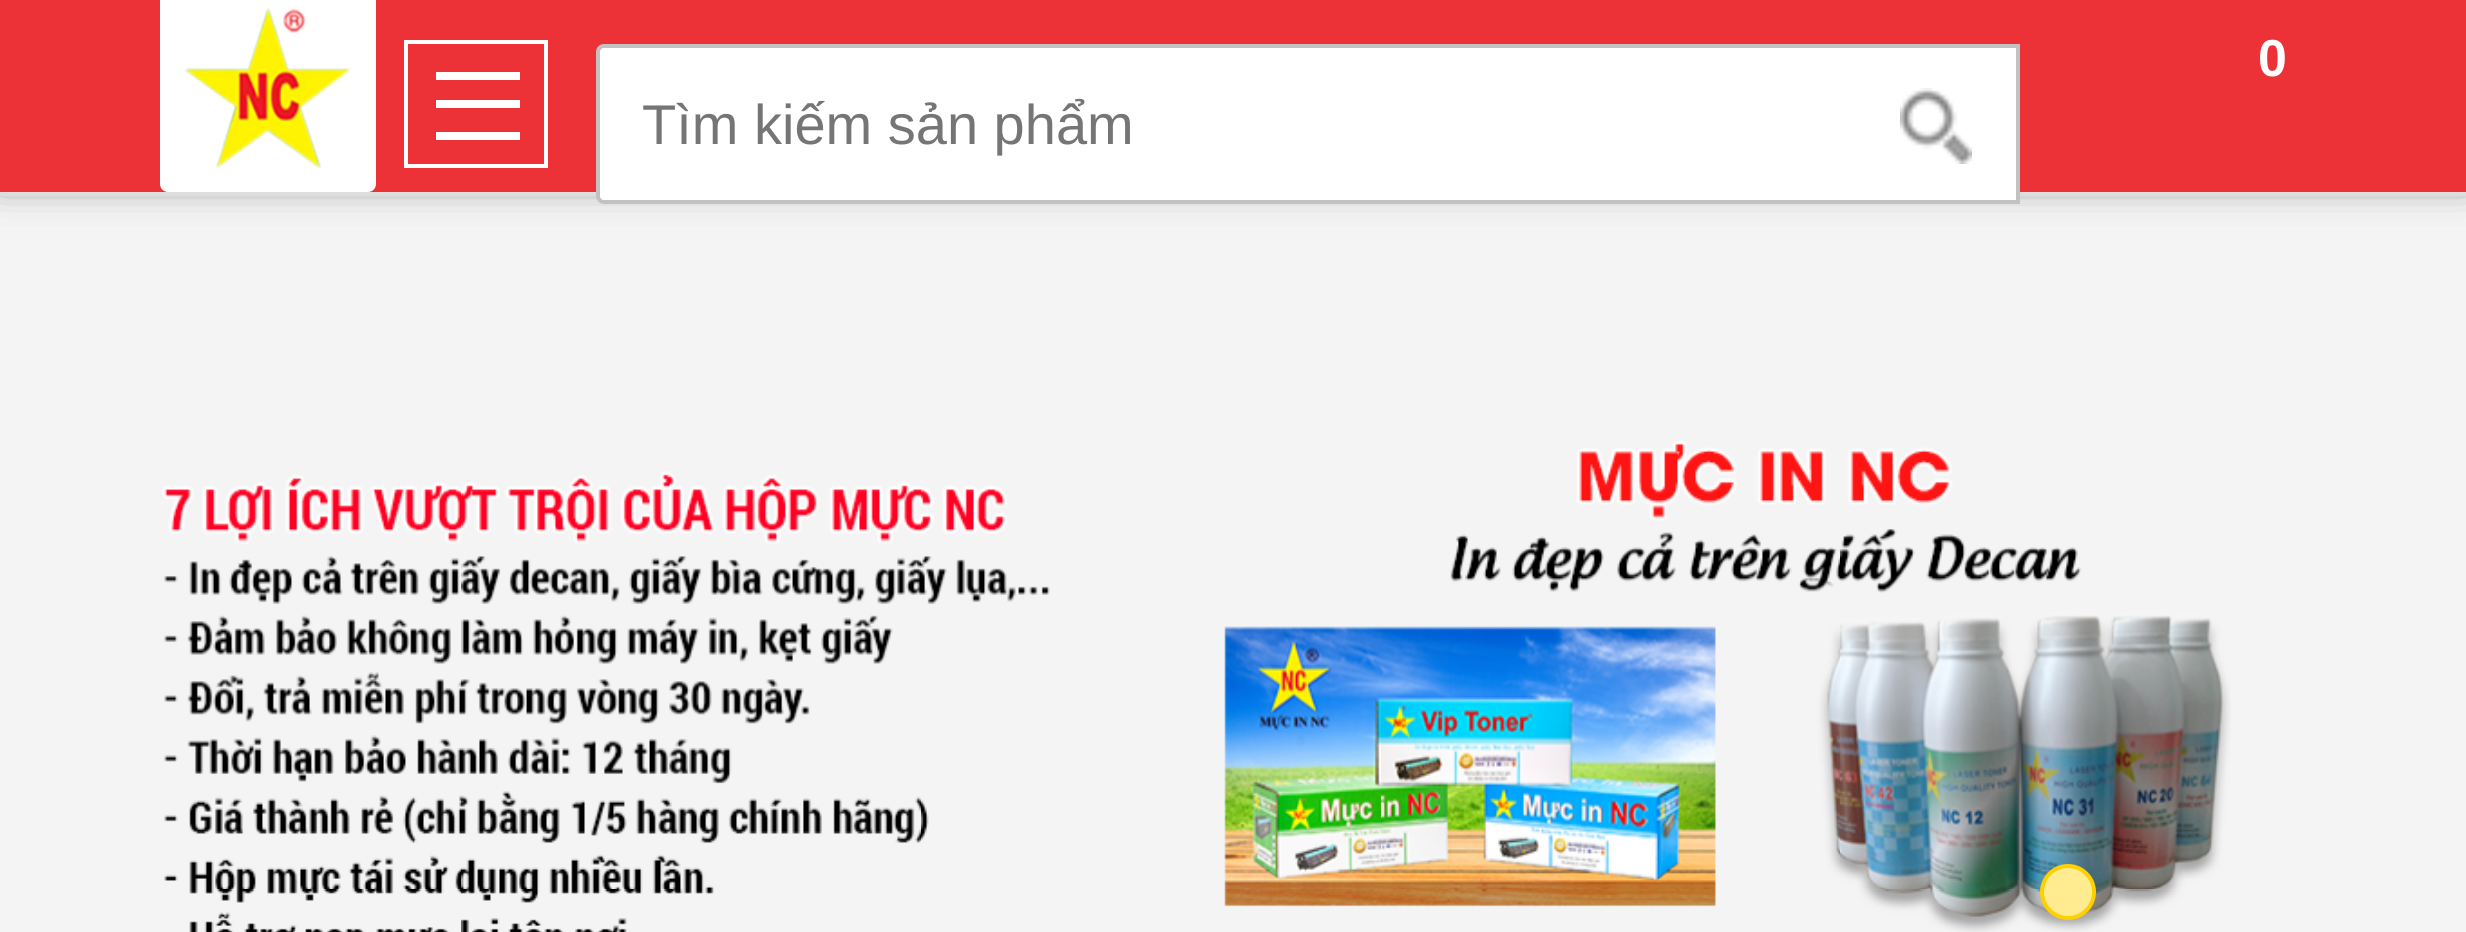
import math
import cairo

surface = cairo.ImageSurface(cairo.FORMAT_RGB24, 2466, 932)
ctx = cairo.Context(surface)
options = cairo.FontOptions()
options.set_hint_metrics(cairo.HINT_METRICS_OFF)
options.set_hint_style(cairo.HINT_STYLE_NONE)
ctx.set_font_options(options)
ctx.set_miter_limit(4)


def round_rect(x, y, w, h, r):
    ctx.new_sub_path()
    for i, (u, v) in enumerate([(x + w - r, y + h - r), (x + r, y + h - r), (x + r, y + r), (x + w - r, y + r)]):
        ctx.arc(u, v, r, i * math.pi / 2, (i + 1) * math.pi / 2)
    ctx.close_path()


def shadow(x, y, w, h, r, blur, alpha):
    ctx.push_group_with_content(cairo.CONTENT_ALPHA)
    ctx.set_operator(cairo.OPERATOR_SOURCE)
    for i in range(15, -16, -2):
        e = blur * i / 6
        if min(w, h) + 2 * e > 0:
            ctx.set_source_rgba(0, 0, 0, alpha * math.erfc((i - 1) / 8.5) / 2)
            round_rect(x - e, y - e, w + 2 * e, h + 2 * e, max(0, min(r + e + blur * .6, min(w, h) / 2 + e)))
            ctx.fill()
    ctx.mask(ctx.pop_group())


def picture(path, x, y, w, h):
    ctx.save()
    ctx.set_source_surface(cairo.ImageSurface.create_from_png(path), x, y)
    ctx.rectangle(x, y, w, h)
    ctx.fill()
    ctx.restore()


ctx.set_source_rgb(0.957, 0.957, 0.957)
ctx.paint()
ctx.set_source_rgb(0.2, 0.2, 0.2)
shadow(0, -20, 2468, 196, 0, 20, 1)
ctx.set_source_rgb(0.929, 0.196, 0.216)
ctx.rectangle(0, 0, 2466, 192)
ctx.fill()
ctx.set_source_rgb(0.867, 0.867, 0.867)
ctx.rectangle(0, 192, 2466, 4)
ctx.fill()
ctx.set_source_rgb(1, 1, 1)
round_rect(160, -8, 216, 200, 8)
ctx.fill()
picture("img1.png", 184, 8, 167, 160)
ctx.rectangle(406, 42, 140, 124)
ctx.set_line_width(4)
ctx.stroke()
ctx.rectangle(436, 72, 84, 8)
ctx.fill()
ctx.rectangle(436, 100, 84, 8)
ctx.fill()
ctx.rectangle(436, 132, 84, 8)
ctx.fill()
round_rect(598, 46, 1420, 156, 6)
ctx.fill_preserve()
ctx.set_source_rgb(0.761, 0.761, 0.761)
ctx.stroke()
ctx.select_font_face("Liberation Sans")
ctx.set_font_size(56)
ctx.set_source_rgb(0.459, 0.459, 0.459)
ctx.move_to(642, 144)
ctx.show_text("Tìm kiếm sản phẩm")
ctx.set_source_rgb(1, 1, 1)
ctx.rectangle(2012, 48, 4, 152)
ctx.fill()
picture("img2.png", 1900, 88, 72, 76)
ctx.set_source_rgb(0.761, 0.761, 0.761)
ctx.rectangle(2013, 44, 7, 4)
ctx.fill()
ctx.rectangle(2016, 44, 4, 160)
ctx.fill()
ctx.rectangle(2012, 203, 8, 1)
ctx.fill()
ctx.select_font_face("Liberation Sans", cairo.FONT_SLANT_NORMAL, cairo.FONT_WEIGHT_BOLD)
ctx.set_font_size(52)
ctx.set_source_rgb(1, 1, 1)
ctx.move_to(2258, 76)
ctx.show_text("0")
picture("img3.png", 162, 441, 2069, 491)
ctx.set_source_rgb(1, 0.922, 0.569)
ctx.arc(2068, 892, 26, 0, 2 * math.pi)
ctx.fill_preserve()
ctx.set_source_rgb(1, 0.812, 0)
ctx.stroke()
surface.write_to_png("page.png")
